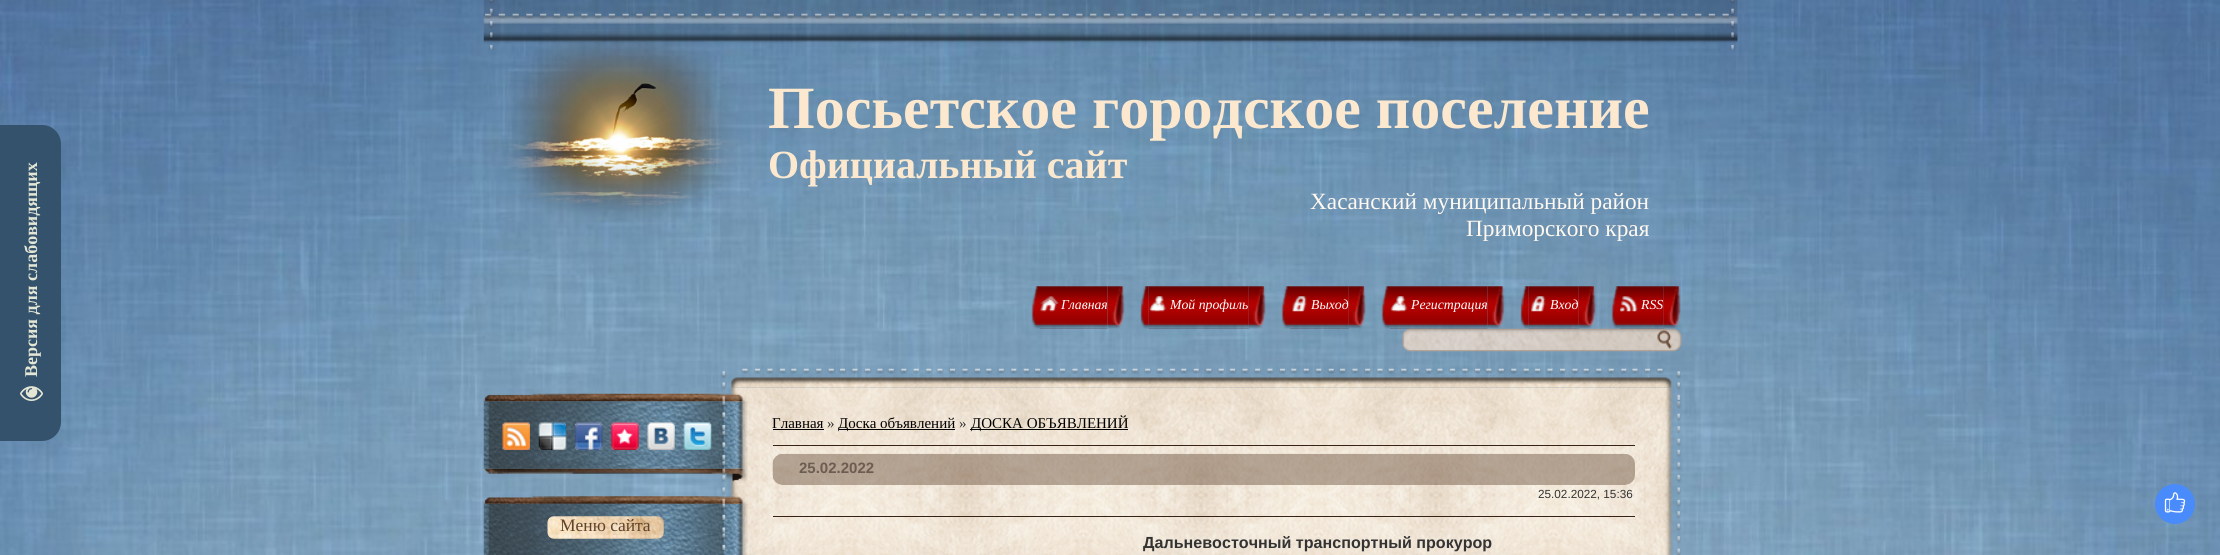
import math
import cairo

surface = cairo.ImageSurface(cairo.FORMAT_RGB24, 2220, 555)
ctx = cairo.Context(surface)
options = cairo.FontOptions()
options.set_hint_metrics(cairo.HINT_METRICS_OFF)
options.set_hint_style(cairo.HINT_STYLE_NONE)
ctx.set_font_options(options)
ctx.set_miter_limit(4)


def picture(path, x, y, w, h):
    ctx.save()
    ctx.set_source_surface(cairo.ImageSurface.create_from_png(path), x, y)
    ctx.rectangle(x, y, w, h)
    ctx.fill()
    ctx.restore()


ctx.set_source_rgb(1, 1, 1)
ctx.paint()
picture("img1.png", 0, 0, 2220, 555)
ctx.set_source_rgb(0.204, 0.322, 0.42)
ctx.new_path()
ctx.move_to(0, 125)
ctx.line_to(42, 125)
ctx.curve_to(52.5, 125, 61, 133.5, 61, 144)
ctx.line_to(61, 422)
ctx.curve_to(61, 432.5, 52.5, 441, 42, 441)
ctx.line_to(0, 441)
ctx.close_path()
ctx.fill()
ctx.select_font_face("Liberation Serif", cairo.FONT_SLANT_NORMAL, cairo.FONT_WEIGHT_BOLD)
ctx.set_font_size(18)
ctx.set_source_rgb(0.894, 0.902, 0.835)
ctx.save()
ctx.translate(37, 377)
ctx.rotate(-90 * math.pi / 180)
ctx.move_to(0, 0)
ctx.show_text("Версия для слабовидящих")
ctx.restore()
picture("img2.png", 20, 386, 23, 15)
picture("img3.png", 483, 0, 1255, 50)
picture("img4.png", 501, 31, 237, 192)
ctx.set_font_size(60)
ctx.set_source_rgb(0.984, 0.91, 0.812)
ctx.move_to(768, 128)
ctx.show_text("Посьетское городское поселение")
ctx.set_font_size(40)
ctx.move_to(768, 178)
ctx.show_text("Официальный сайт")
ctx.select_font_face("Liberation Serif")
ctx.set_font_size(23.3)
ctx.set_source_rgb(0.996, 0.969, 0.941)
ctx.move_to(1310, 209)
ctx.show_text("Хасанский муниципальный район")
ctx.move_to(1466, 236)
ctx.show_text("Приморского края")
picture("img5.png", 1031, 286, 9, 43)
picture("img6.png", 1040, 286, 68, 43)
picture("img7.png", 1040, 296, 19, 16)
ctx.select_font_face("Liberation Serif", cairo.FONT_SLANT_ITALIC)
ctx.set_font_size(13.75)
ctx.set_source_rgb(1, 1, 1)
ctx.move_to(1061, 309)
ctx.show_text("Главная")
picture("img8.png", 1107, 286, 18, 43)
picture("img9.png", 1140, 286, 9, 43)
picture("img10.png", 1148, 286, 101, 43)
picture("img11.png", 1149, 296, 18, 16)
ctx.move_to(1170, 309)
ctx.show_text("Мой профиль")
picture("img12.png", 1248, 286, 18, 43)
picture("img13.png", 1281, 286, 9, 43)
picture("img14.png", 1290, 286, 59, 43)
picture("img15.png", 1292, 296, 15, 16)
ctx.move_to(1311, 309)
ctx.show_text("Выход")
picture("img16.png", 1348, 286, 18, 43)
picture("img17.png", 1381, 286, 9, 43)
picture("img18.png", 1390, 286, 98, 43)
picture("img19.png", 1390, 296, 18, 16)
ctx.move_to(1411, 309)
ctx.show_text("Регистрация")
picture("img20.png", 1487, 286, 18, 43)
picture("img21.png", 1520, 286, 9, 43)
picture("img22.png", 1528, 286, 51, 43)
picture("img23.png", 1531, 296, 15, 16)
ctx.move_to(1550, 309)
ctx.show_text("Вход")
picture("img24.png", 1578, 286, 18, 43)
picture("img25.png", 1611, 286, 9, 43)
picture("img26.png", 1620, 286, 44, 43)
picture("img27.png", 1620, 296, 18, 16)
ctx.move_to(1641, 309)
ctx.show_text("RSS")
picture("img28.png", 1663, 286, 18, 43)
picture("img29.png", 1402, 328, 280, 24)
picture("img31.png", 721, 387, 960, 168)
picture("img30.png", 721, 368, 960, 20)
picture("img33.png", 483, 401, 265, 68)
picture("img32.png", 483, 393, 264, 9)
picture("img34.png", 502, 422, 28, 28)
picture("img35.png", 538, 422, 29, 28)
picture("img36.png", 575, 422, 28, 28)
picture("img37.png", 611, 422, 28, 28)
picture("img38.png", 647, 422, 28, 28)
picture("img39.png", 683, 422, 29, 28)
picture("img40.png", 484, 468, 264, 14)
picture("img42.png", 483, 503, 265, 52)
picture("img41.png", 483, 496, 264, 8)
picture("img43.png", 547, 516, 117, 23)
ctx.select_font_face("Liberation Serif")
ctx.set_font_size(17.5)
ctx.set_source_rgb(0.373, 0.259, 0.169)
ctx.move_to(560, 531)
ctx.show_text("Меню сайта")
ctx.set_font_size(15)
ctx.set_source_rgb(0, 0, 0)
ctx.move_to(772, 428)
ctx.show_text("Главная")
ctx.rectangle(773, 429, 51, 1)
ctx.fill()
ctx.set_source_rgb(0.2, 0.2, 0.2)
ctx.move_to(827, 428)
ctx.show_text("»")
ctx.set_source_rgb(0, 0, 0)
ctx.rectangle(839, 429, 116, 1)
ctx.fill()
ctx.move_to(838, 428)
ctx.show_text("Доска объявлений")
ctx.set_source_rgb(0.2, 0.2, 0.2)
ctx.move_to(959, 428)
ctx.show_text("»")
ctx.set_source_rgb(0, 0, 0)
ctx.rectangle(970, 429, 158, 1)
ctx.fill()
ctx.move_to(971, 428)
ctx.show_text("ДОСКА ОБЪЯВЛЕНИЙ")
ctx.set_source_rgb(0.212, 0.137, 0.086)
ctx.rectangle(773, 445, 862, 1)
ctx.fill()
picture("img44.png", 772, 453, 863, 32)
ctx.select_font_face("Liberation Sans", cairo.FONT_SLANT_NORMAL, cairo.FONT_WEIGHT_BOLD)
ctx.set_source_rgb(0.424, 0.365, 0.322)
ctx.move_to(799, 473)
ctx.show_text("25.02.2022")
ctx.select_font_face("Liberation Sans")
ctx.set_font_size(11.75)
ctx.set_source_rgb(0.2, 0.2, 0.2)
ctx.move_to(1538, 498)
ctx.show_text("25.02.2022, 15:36")
ctx.set_source_rgb(0.212, 0.137, 0.086)
ctx.rectangle(773, 516, 862, 1)
ctx.fill()
ctx.select_font_face("Liberation Sans", cairo.FONT_SLANT_NORMAL, cairo.FONT_WEIGHT_BOLD)
ctx.set_font_size(16.1)
ctx.set_source_rgb(0.2, 0.2, 0.2)
ctx.move_to(1143, 548)
ctx.show_text("Дальневосточный транспортный прокурор")
ctx.set_source_rgb(0.286, 0.545, 0.98)
ctx.new_path()
ctx.arc(2175, 504, 20, 0, 2 * math.pi)
ctx.fill()
picture("img45.png", 2164, 492, 22, 21)
surface.write_to_png("page.png")
